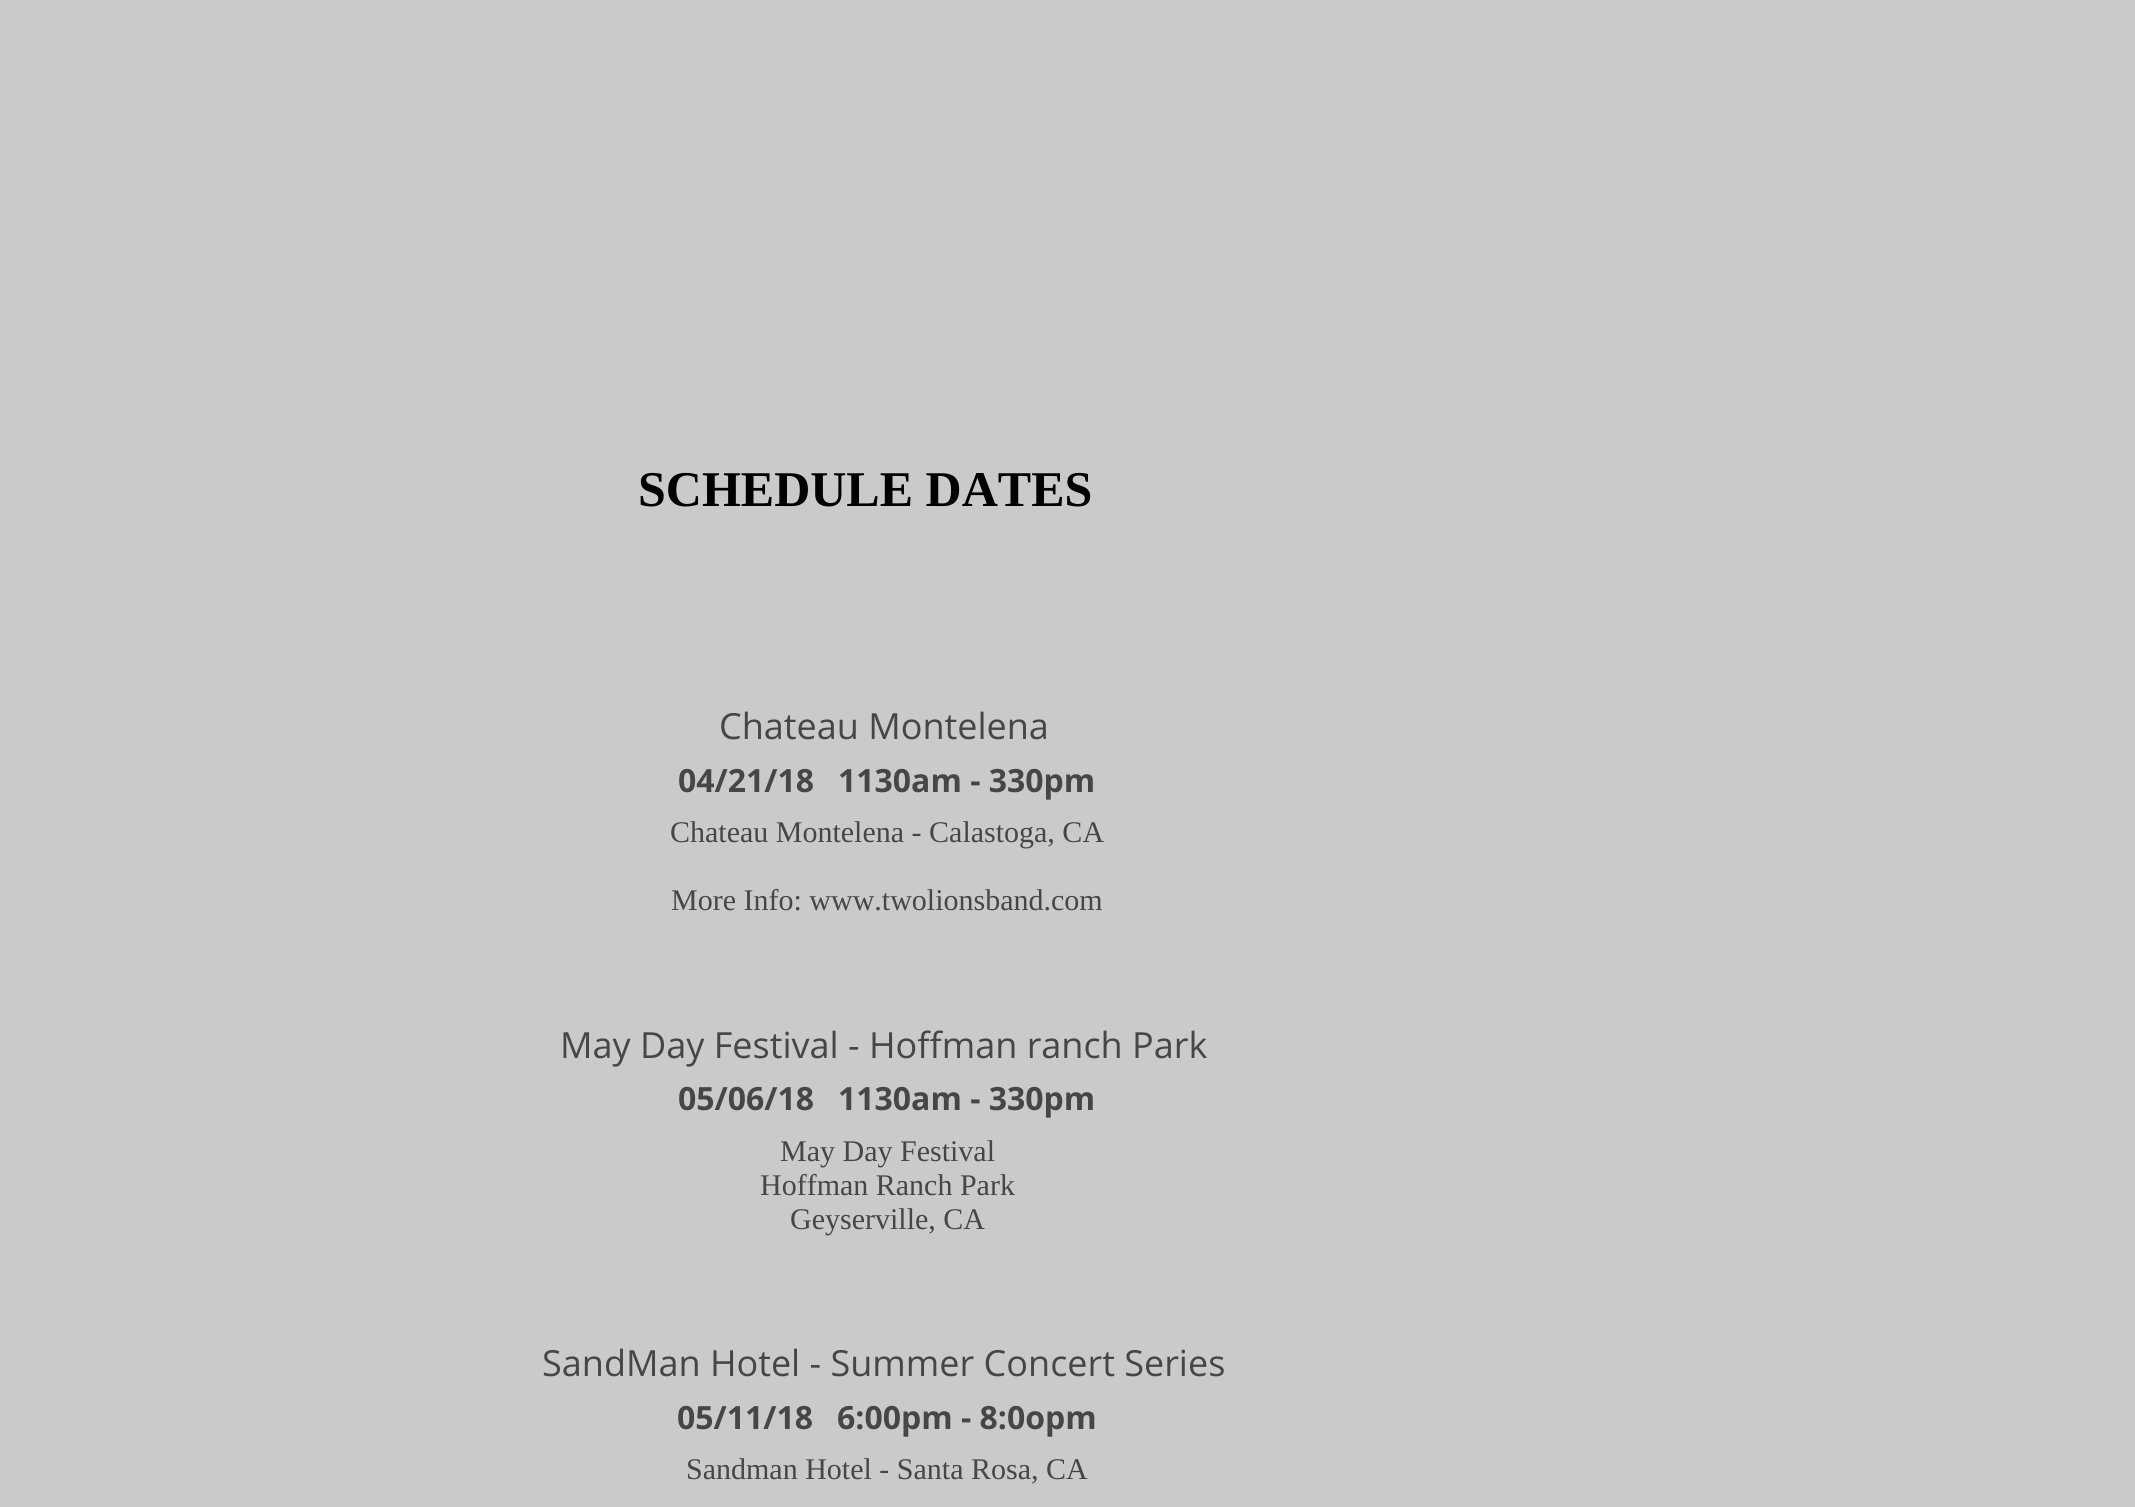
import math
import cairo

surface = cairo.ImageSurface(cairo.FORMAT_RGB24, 2135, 1507)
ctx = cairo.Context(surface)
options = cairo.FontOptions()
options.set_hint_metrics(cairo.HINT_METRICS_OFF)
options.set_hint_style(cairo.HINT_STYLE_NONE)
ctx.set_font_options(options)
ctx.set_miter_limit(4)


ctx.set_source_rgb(0.792, 0.792, 0.792)
ctx.paint()
ctx.select_font_face("Liberation Serif", cairo.FONT_SLANT_NORMAL, cairo.FONT_WEIGHT_BOLD)
ctx.set_font_size(50)
ctx.set_source_rgb(0, 0, 0)
ctx.move_to(638, 506)
ctx.show_text("SCHEDULE DATES")
ctx.select_font_face("Open Sans")
ctx.set_font_size(36)
ctx.set_source_rgb(0.275, 0.275, 0.275)
ctx.move_to(719, 739)
ctx.show_text("Chateau Montelena")
ctx.select_font_face("Open Sans", cairo.FONT_SLANT_NORMAL, cairo.FONT_WEIGHT_BOLD)
ctx.set_font_size(32)
ctx.move_to(678, 792)
ctx.show_text("04/21/18")
ctx.move_to(838, 792)
ctx.show_text("1130am - 330pm")
ctx.select_font_face("Liberation Serif")
ctx.set_font_size(30)
ctx.move_to(670, 842)
ctx.show_text("Chateau Montelena - Calastoga, CA")
ctx.move_to(671, 910)
ctx.show_text("More Info: www.twolionsband.com")
ctx.select_font_face("Open Sans")
ctx.set_font_size(36)
ctx.move_to(560, 1058)
ctx.show_text("May Day Festival - Hoffman ranch Park")
ctx.select_font_face("Open Sans", cairo.FONT_SLANT_NORMAL, cairo.FONT_WEIGHT_BOLD)
ctx.set_font_size(32)
ctx.move_to(678, 1110)
ctx.show_text("05/06/18")
ctx.move_to(838, 1110)
ctx.show_text("1130am - 330pm")
ctx.select_font_face("Liberation Serif")
ctx.set_font_size(30)
ctx.move_to(780, 1161)
ctx.show_text("May Day Festival")
ctx.move_to(760, 1195)
ctx.show_text("Hoffman Ranch Park")
ctx.move_to(790, 1229)
ctx.show_text("Geyserville, CA")
ctx.select_font_face("Open Sans")
ctx.set_font_size(36)
ctx.move_to(542, 1376)
ctx.show_text("SandMan Hotel - Summer Concert Series")
ctx.select_font_face("Open Sans", cairo.FONT_SLANT_NORMAL, cairo.FONT_WEIGHT_BOLD)
ctx.set_font_size(32)
ctx.move_to(677, 1429)
ctx.show_text("05/11/18")
ctx.move_to(837, 1429)
ctx.show_text("6:00pm - 8:0opm")
ctx.select_font_face("Liberation Serif")
ctx.set_font_size(30)
ctx.move_to(686, 1479)
ctx.show_text("Sandman Hotel - Santa Rosa, CA")
surface.write_to_png("page.png")
